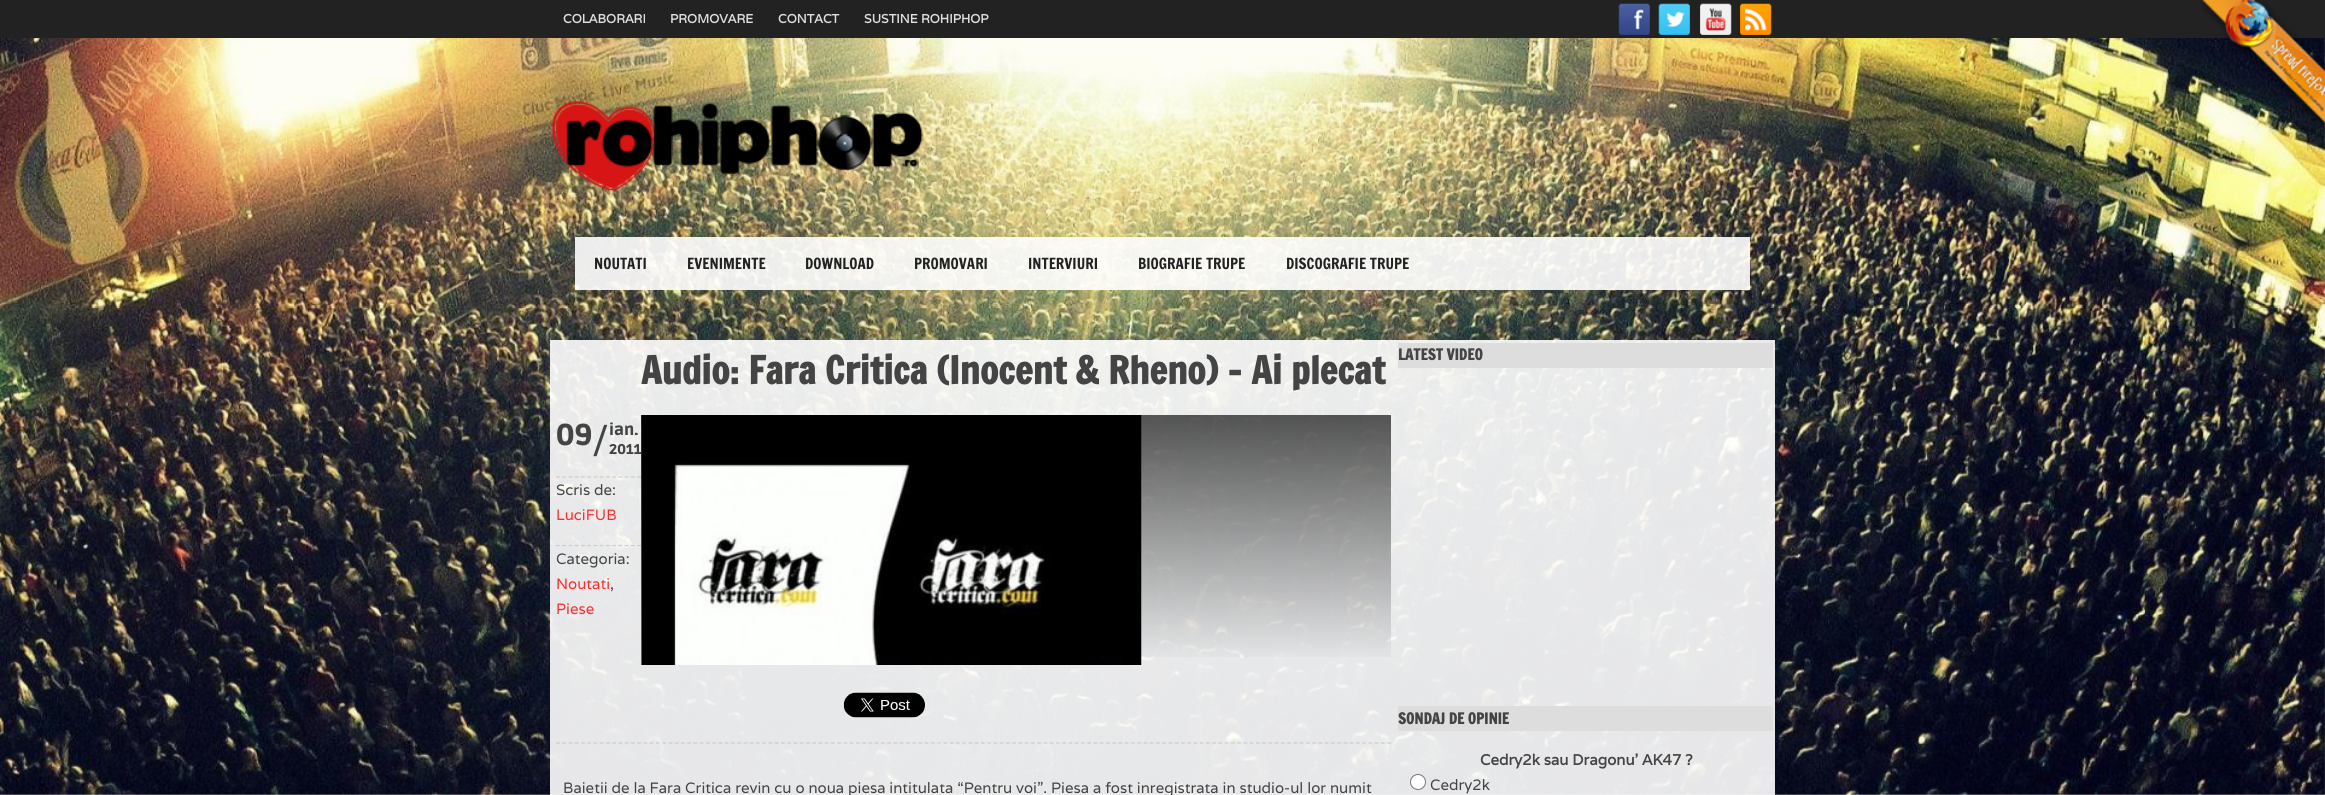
import math
import cairo

surface = cairo.ImageSurface(cairo.FORMAT_RGB24, 2325, 795)
ctx = cairo.Context(surface)
options = cairo.FontOptions()
options.set_hint_metrics(cairo.HINT_METRICS_OFF)
options.set_hint_style(cairo.HINT_STYLE_NONE)
ctx.set_font_options(options)
ctx.set_miter_limit(4)


def picture(path, x, y, w, h):
    ctx.save()
    ctx.set_source_surface(cairo.ImageSurface.create_from_png(path), x, y)
    ctx.rectangle(x, y, w, h)
    ctx.fill()
    ctx.restore()


ctx.set_source_rgb(1, 1, 1)
ctx.paint()
picture("img1.png", 0, 38, 2325, 757)
ctx.set_source_rgb(0.133, 0.133, 0.133)
ctx.rectangle(0, 0, 2325, 38)
ctx.fill()
ctx.select_font_face("Varela", cairo.FONT_SLANT_NORMAL, cairo.FONT_WEIGHT_BOLD)
ctx.set_font_size(12.4)
ctx.set_source_rgb(0.878, 0.878, 0.878)
ctx.move_to(563, 23)
ctx.show_text("COLABORARI")
ctx.move_to(670, 23)
ctx.show_text("PROMOVARE")
ctx.move_to(778, 23)
ctx.show_text("CONTACT")
ctx.move_to(864, 23)
ctx.show_text("SUSTINE ROHIPHOP")
picture("img2.png", 1618, 3, 32, 32)
picture("img3.png", 1658, 3, 32, 32)
picture("img4.png", 1700, 3, 32, 32)
picture("img5.png", 1740, 3, 32, 32)
picture("img6.png", 2202, 0, 123, 125)
picture("img7.png", 551, 101, 373, 91)
ctx.set_source_rgba(1, 1, 1, 0.9)
ctx.rectangle(575, 237, 1175, 53)
ctx.fill()
ctx.select_font_face("Francois One")
ctx.set_font_size(15)
ctx.set_source_rgb(0.133, 0.133, 0.133)
ctx.move_to(594, 269)
ctx.show_text("NOUTATI")
ctx.move_to(687, 269)
ctx.show_text("EVENIMENTE")
ctx.move_to(805, 269)
ctx.show_text("DOWNLOAD")
ctx.move_to(914, 269)
ctx.show_text("PROMOVARI")
ctx.move_to(1028, 269)
ctx.show_text("INTERVIURI")
ctx.move_to(1138, 269)
ctx.show_text("BIOGRAFIE TRUPE")
ctx.move_to(1286, 269)
ctx.show_text("DISCOGRAFIE TRUPE")
ctx.set_source_rgba(1, 1, 1, 0.9)
ctx.rectangle(550, 340, 1225, 455)
ctx.fill()
ctx.select_font_face("Francois One", cairo.FONT_SLANT_NORMAL, cairo.FONT_WEIGHT_BOLD)
ctx.set_font_size(37.5)
ctx.set_source_rgb(0.267, 0.267, 0.267)
ctx.move_to(641, 384)
ctx.show_text("Audio: Fara Critica (Inocent & Rheno) – Ai plecat")
ctx.select_font_face("Ruda Black")
ctx.set_font_size(30)
ctx.move_to(556, 445)
ctx.show_text("09")
ctx.select_font_face("Varela")
ctx.set_font_size(37.5)
ctx.move_to(592, 453)
ctx.show_text("/")
ctx.select_font_face("Ruda Black")
ctx.set_font_size(16)
ctx.move_to(609, 435)
ctx.show_text("ian.")
ctx.set_font_size(14)
ctx.move_to(609, 454)
ctx.show_text("2011")
ctx.new_path()
ctx.move_to(556, 477)
ctx.line_to(641, 477)
ctx.set_source_rgb(0.8, 0.8, 0.8)
ctx.set_line_width(1.2)
ctx.set_dash([3.75, 2.5])
ctx.stroke()
ctx.select_font_face("Varela")
ctx.set_font_size(15)
ctx.set_source_rgb(0.267, 0.267, 0.267)
ctx.move_to(556, 495)
ctx.show_text("Scris de:")
ctx.set_source_rgb(0.984, 0.18, 0.18)
ctx.move_to(556, 520)
ctx.show_text("LuciFUB")
ctx.new_path()
ctx.move_to(556, 545.5)
ctx.line_to(641, 545.5)
ctx.set_source_rgb(0.8, 0.8, 0.8)
ctx.stroke()
ctx.set_source_rgb(0.267, 0.267, 0.267)
ctx.move_to(556, 564)
ctx.show_text("Categoria:")
ctx.set_source_rgb(0.984, 0.18, 0.18)
ctx.move_to(556, 589)
ctx.show_text("Noutati")
ctx.set_source_rgb(0.267, 0.267, 0.267)
ctx.move_to(610, 589)
ctx.show_text(",")
ctx.set_source_rgb(0.984, 0.18, 0.18)
ctx.move_to(556, 614)
ctx.show_text("Piese")
gradient = cairo.LinearGradient(1016, 415, 1016, 665)
gradient.add_color_stop_rgba(0, 0, 0, 0, 0.65)
gradient.add_color_stop_rgba(1, 0, 0, 0, 0)
ctx.set_source(gradient)
ctx.rectangle(641, 415, 750, 242)
ctx.fill()
picture("img8.png", 641, 415, 501, 250)
picture("img9.png", 843, 692, 82, 26)
ctx.new_path()
ctx.move_to(556, 743)
ctx.line_to(1391, 743)
ctx.set_source_rgb(0.8, 0.8, 0.8)
ctx.stroke()
ctx.set_source_rgb(0.267, 0.267, 0.267)
ctx.move_to(563, 793)
ctx.show_text("Baietii de la Fara Critica revin cu o noua piesa intitulata “Pentru voi”. Piesa a fost inregistrata in studio-ul lor numit")
ctx.set_source_rgb(0.867, 0.867, 0.867)
ctx.rectangle(1398, 343, 375, 25)
ctx.fill()
ctx.select_font_face("Francois One", cairo.FONT_SLANT_NORMAL, cairo.FONT_WEIGHT_BOLD)
ctx.set_source_rgb(0.267, 0.267, 0.267)
ctx.move_to(1398, 360)
ctx.show_text("LATEST VIDEO")
ctx.set_source_rgb(0.867, 0.867, 0.867)
ctx.rectangle(1398, 706, 375, 25)
ctx.fill()
ctx.set_source_rgb(0.267, 0.267, 0.267)
ctx.move_to(1398, 724)
ctx.show_text("SONDAJ DE OPINIE")
ctx.select_font_face("Varela", cairo.FONT_SLANT_NORMAL, cairo.FONT_WEIGHT_BOLD)
ctx.move_to(1480, 765)
ctx.show_text("Cedry2k sau Dragonu' AK47 ?")
ctx.set_source_rgb(1, 1, 1)
ctx.new_path()
ctx.arc(1418, 782, 7.5, 0, 2 * math.pi)
ctx.fill_preserve()
ctx.set_source_rgb(0.463, 0.463, 0.463)
ctx.set_line_width(1)
ctx.set_dash([])
ctx.stroke()
ctx.select_font_face("Varela")
ctx.set_source_rgb(0.267, 0.267, 0.267)
ctx.move_to(1430, 790)
ctx.show_text("Cedry2k")
surface.write_to_png("page.png")
